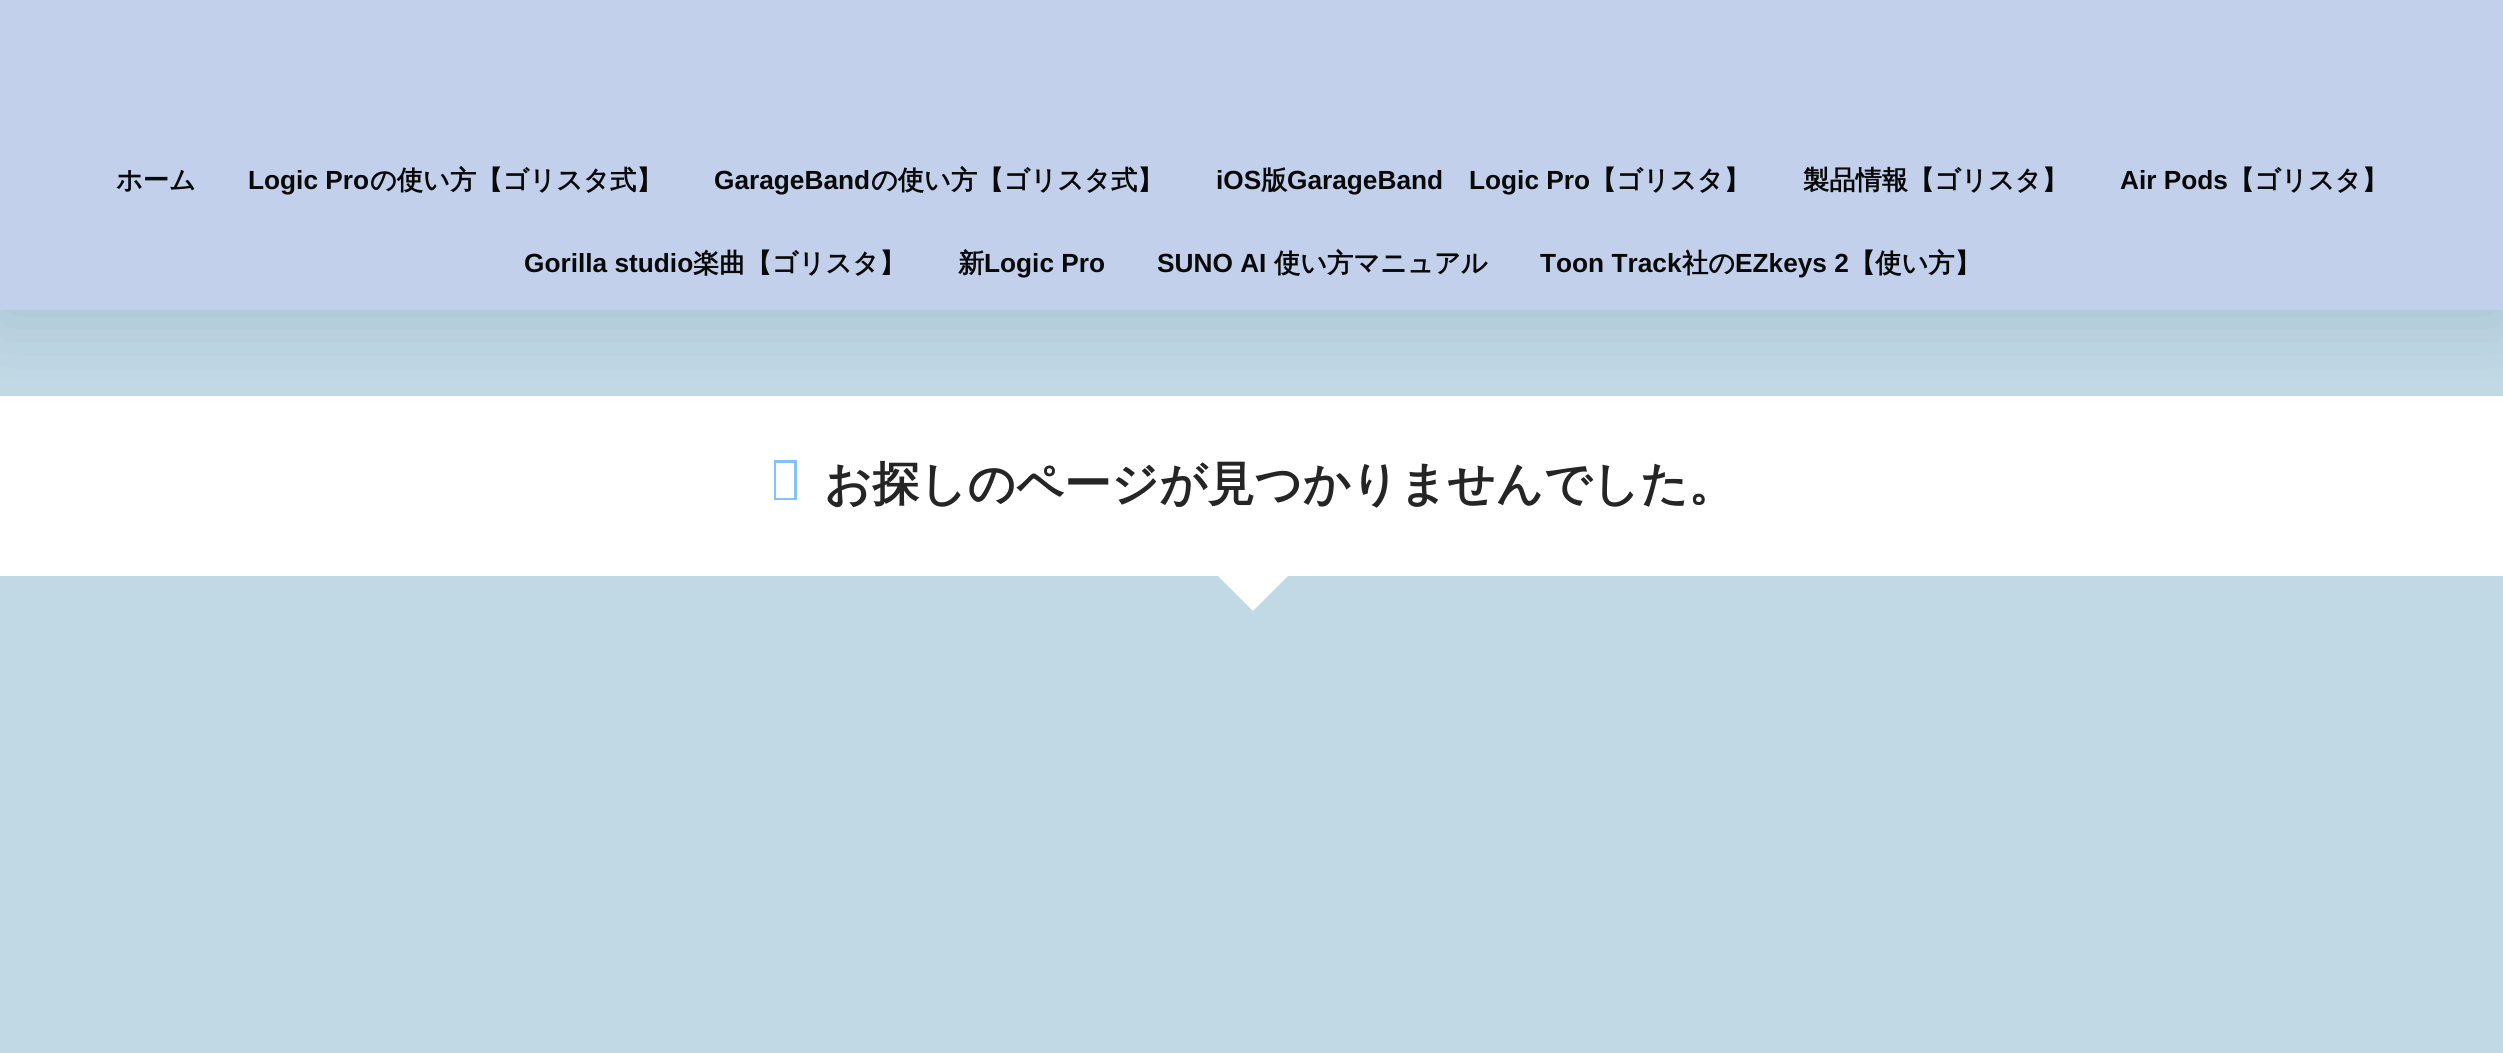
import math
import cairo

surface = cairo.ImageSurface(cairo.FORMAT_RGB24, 2503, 1053)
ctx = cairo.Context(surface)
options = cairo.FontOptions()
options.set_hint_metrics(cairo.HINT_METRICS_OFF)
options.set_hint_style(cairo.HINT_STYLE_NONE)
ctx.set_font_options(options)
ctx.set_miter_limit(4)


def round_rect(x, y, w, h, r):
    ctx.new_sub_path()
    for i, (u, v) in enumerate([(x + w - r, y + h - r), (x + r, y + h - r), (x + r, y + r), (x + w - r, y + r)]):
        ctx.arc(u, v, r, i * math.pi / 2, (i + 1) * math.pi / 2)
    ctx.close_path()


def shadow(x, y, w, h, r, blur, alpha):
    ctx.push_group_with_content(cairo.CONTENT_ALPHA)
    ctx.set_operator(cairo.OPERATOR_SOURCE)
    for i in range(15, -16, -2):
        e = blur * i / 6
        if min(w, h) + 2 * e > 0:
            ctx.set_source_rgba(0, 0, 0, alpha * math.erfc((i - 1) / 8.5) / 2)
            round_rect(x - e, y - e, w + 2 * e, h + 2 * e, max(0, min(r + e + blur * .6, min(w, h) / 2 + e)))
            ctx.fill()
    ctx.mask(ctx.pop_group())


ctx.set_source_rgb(0.753, 0.851, 0.898)
ctx.paint()
ctx.set_source_rgb(1, 1, 1)
ctx.rectangle(0, 396, 2503, 180)
ctx.fill()
ctx.set_source_rgb(0, 0.047, 0.259)
shadow(0, 0, 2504, 310, 0, 39.5, 0.15)
ctx.set_source_rgb(0.761, 0.816, 0.918)
ctx.rectangle(0, 0, 2503, 310)
ctx.fill()
ctx.select_font_face("WenQuanYi Zen Hei", cairo.FONT_SLANT_NORMAL, cairo.FONT_WEIGHT_BOLD)
ctx.set_font_size(26.25)
ctx.set_source_rgb(0.039, 0.039, 0.039)
ctx.move_to(116, 189)
ctx.show_text("ホーム")
ctx.select_font_face("Liberation Sans", cairo.FONT_SLANT_NORMAL, cairo.FONT_WEIGHT_BOLD)
ctx.move_to(248, 189)
ctx.show_text("Logic Pro")
ctx.select_font_face("WenQuanYi Zen Hei", cairo.FONT_SLANT_NORMAL, cairo.FONT_WEIGHT_BOLD)
ctx.move_to(370, 189)
ctx.show_text("の使い方【ゴリスタ式】")
ctx.select_font_face("Liberation Sans", cairo.FONT_SLANT_NORMAL, cairo.FONT_WEIGHT_BOLD)
ctx.move_to(714, 189)
ctx.show_text("GarageBand")
ctx.select_font_face("WenQuanYi Zen Hei", cairo.FONT_SLANT_NORMAL, cairo.FONT_WEIGHT_BOLD)
ctx.move_to(871, 189)
ctx.show_text("の使い方【ゴリスタ式】")
ctx.select_font_face("Liberation Sans", cairo.FONT_SLANT_NORMAL, cairo.FONT_WEIGHT_BOLD)
ctx.move_to(1216, 189)
ctx.show_text("iOS")
ctx.select_font_face("WenQuanYi Zen Hei", cairo.FONT_SLANT_NORMAL, cairo.FONT_WEIGHT_BOLD)
ctx.move_to(1261, 189)
ctx.show_text("版")
ctx.select_font_face("Liberation Sans", cairo.FONT_SLANT_NORMAL, cairo.FONT_WEIGHT_BOLD)
ctx.move_to(1287, 189)
ctx.show_text("GarageBand")
ctx.move_to(1469, 189)
ctx.show_text("Logic Pro")
ctx.select_font_face("WenQuanYi Zen Hei", cairo.FONT_SLANT_NORMAL, cairo.FONT_WEIGHT_BOLD)
ctx.move_to(1590, 189)
ctx.show_text("【ゴリスタ】")
ctx.move_to(1803, 189)
ctx.show_text("製品情報【ゴリスタ】")
ctx.select_font_face("Liberation Sans", cairo.FONT_SLANT_NORMAL, cairo.FONT_WEIGHT_BOLD)
ctx.move_to(2120, 189)
ctx.show_text("Air Pods")
ctx.select_font_face("WenQuanYi Zen Hei", cairo.FONT_SLANT_NORMAL, cairo.FONT_WEIGHT_BOLD)
ctx.move_to(2228, 189)
ctx.show_text("【ゴリスタ】")
ctx.select_font_face("Liberation Sans", cairo.FONT_SLANT_NORMAL, cairo.FONT_WEIGHT_BOLD)
ctx.move_to(524, 272)
ctx.show_text("Gorilla studio")
ctx.select_font_face("WenQuanYi Zen Hei", cairo.FONT_SLANT_NORMAL, cairo.FONT_WEIGHT_BOLD)
ctx.move_to(693, 272)
ctx.show_text("楽曲【ゴリスタ】")
ctx.move_to(958, 272)
ctx.show_text("新")
ctx.select_font_face("Liberation Sans", cairo.FONT_SLANT_NORMAL, cairo.FONT_WEIGHT_BOLD)
ctx.move_to(984, 272)
ctx.show_text("Logic Pro")
ctx.move_to(1157, 272)
ctx.show_text("SUNO AI")
ctx.select_font_face("WenQuanYi Zen Hei", cairo.FONT_SLANT_NORMAL, cairo.FONT_WEIGHT_BOLD)
ctx.move_to(1274, 272)
ctx.show_text("使い方マニュアル")
ctx.select_font_face("Liberation Sans", cairo.FONT_SLANT_NORMAL, cairo.FONT_WEIGHT_BOLD)
ctx.move_to(1540, 272)
ctx.show_text("Toon Track")
ctx.select_font_face("WenQuanYi Zen Hei", cairo.FONT_SLANT_NORMAL, cairo.FONT_WEIGHT_BOLD)
ctx.move_to(1682, 272)
ctx.show_text("社の")
ctx.select_font_face("Liberation Sans", cairo.FONT_SLANT_NORMAL, cairo.FONT_WEIGHT_BOLD)
ctx.move_to(1735, 272)
ctx.show_text("EZkeys 2")
ctx.select_font_face("WenQuanYi Zen Hei", cairo.FONT_SLANT_NORMAL, cairo.FONT_WEIGHT_BOLD)
ctx.move_to(1849, 272)
ctx.show_text("【使い方】")
ctx.set_source_rgb(0.518, 0.761, 1)
ctx.new_path()
ctx.move_to(774, 500)
ctx.line_to(774, 460)
ctx.line_to(797, 460)
ctx.line_to(797, 500)
ctx.close_path()
ctx.move_to(776, 498)
ctx.line_to(794, 498)
ctx.line_to(794, 463)
ctx.line_to(776, 463)
ctx.close_path()
ctx.fill()
ctx.set_font_size(47.1)
ctx.set_source_rgb(0.145, 0.145, 0.145)
ctx.move_to(824, 500)
ctx.show_text("お探しのページが見つかりませんでした。")
ctx.set_source_rgb(1, 1, 1)
ctx.new_path()
ctx.move_to(1218, 576)
ctx.line_to(1288, 576)
ctx.line_to(1253, 611)
ctx.close_path()
ctx.fill()
surface.write_to_png("page.png")
